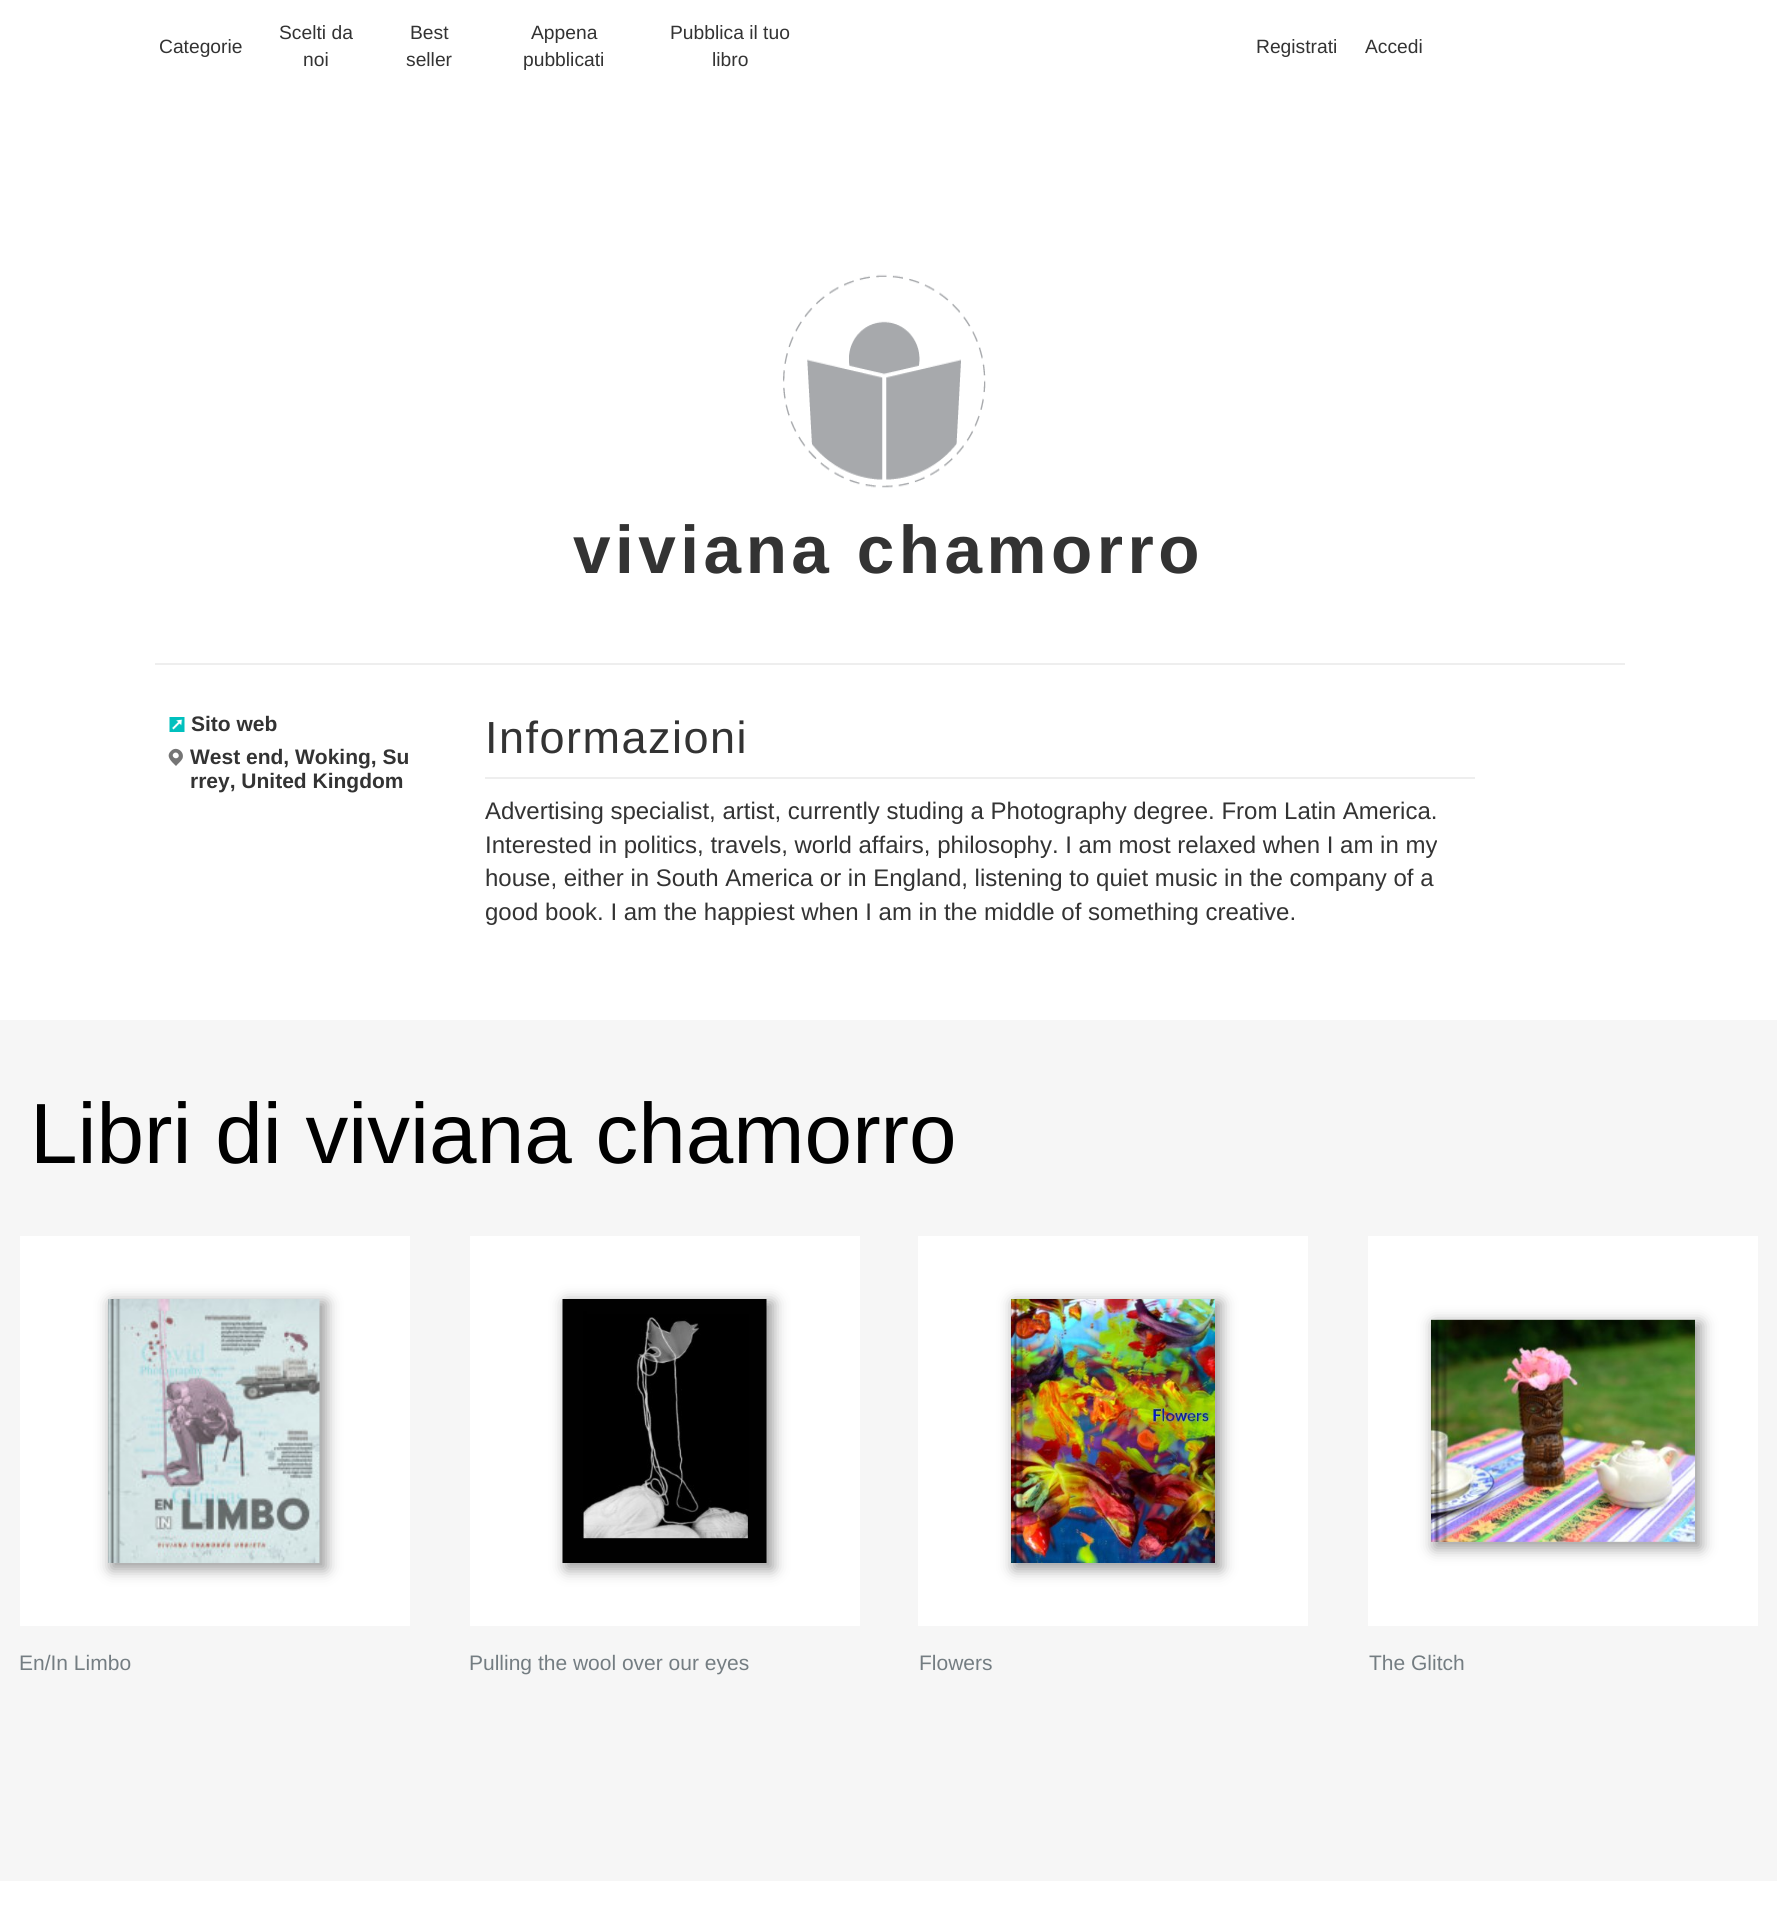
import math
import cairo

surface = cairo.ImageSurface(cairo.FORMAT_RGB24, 1777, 1913)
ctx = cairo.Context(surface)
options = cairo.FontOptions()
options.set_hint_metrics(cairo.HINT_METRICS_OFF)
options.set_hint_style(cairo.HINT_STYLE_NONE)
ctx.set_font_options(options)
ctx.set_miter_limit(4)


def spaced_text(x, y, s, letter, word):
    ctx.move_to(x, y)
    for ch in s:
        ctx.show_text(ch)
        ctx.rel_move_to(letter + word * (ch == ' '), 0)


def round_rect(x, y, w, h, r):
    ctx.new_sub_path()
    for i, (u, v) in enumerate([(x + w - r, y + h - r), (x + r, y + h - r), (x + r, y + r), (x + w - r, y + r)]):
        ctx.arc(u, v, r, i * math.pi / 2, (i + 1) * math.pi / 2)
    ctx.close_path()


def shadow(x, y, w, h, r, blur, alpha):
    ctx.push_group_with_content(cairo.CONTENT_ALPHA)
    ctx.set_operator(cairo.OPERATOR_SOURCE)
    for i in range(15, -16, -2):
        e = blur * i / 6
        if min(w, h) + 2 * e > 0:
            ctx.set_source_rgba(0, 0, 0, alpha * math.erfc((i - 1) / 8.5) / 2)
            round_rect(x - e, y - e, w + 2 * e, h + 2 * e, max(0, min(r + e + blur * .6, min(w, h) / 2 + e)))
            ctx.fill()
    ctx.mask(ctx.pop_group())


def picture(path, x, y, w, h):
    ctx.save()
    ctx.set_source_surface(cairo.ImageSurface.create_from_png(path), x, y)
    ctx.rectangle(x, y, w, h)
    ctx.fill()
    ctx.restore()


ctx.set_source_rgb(1, 1, 1)
ctx.paint()
ctx.select_font_face("Liberation Sans")
ctx.set_font_size(19.25)
ctx.set_source_rgb(0.2, 0.2, 0.2)
ctx.move_to(159, 53)
ctx.show_text("Categorie")
ctx.move_to(279, 39)
ctx.show_text("Scelti da")
ctx.move_to(303, 66)
ctx.show_text("noi")
ctx.move_to(410, 39)
ctx.show_text("Best")
ctx.move_to(406, 66)
ctx.show_text("seller")
ctx.move_to(531, 39)
ctx.show_text("Appena")
ctx.move_to(523, 66)
ctx.show_text("pubblicati")
ctx.move_to(670, 39)
ctx.show_text("Pubblica il tuo")
ctx.move_to(712, 66)
ctx.show_text("libro")
ctx.move_to(1256, 53)
ctx.show_text("Registrati")
ctx.move_to(1365, 53)
ctx.show_text("Accedi")
picture("img1.png", 783, 274, 203, 214)
ctx.select_font_face("Liberation Sans", cairo.FONT_SLANT_NORMAL, cairo.FONT_WEIGHT_BOLD)
ctx.set_font_size(67.5)
spaced_text(573, 573, "viviana chamorro", 4.5, 0)
ctx.set_source_rgb(0.933, 0.933, 0.933)
ctx.rectangle(155, 663, 1470, 2)
ctx.fill()
picture("img2.png", 169, 717, 16, 15)
ctx.set_font_size(21)
ctx.set_source_rgb(0.2, 0.2, 0.2)
ctx.move_to(191, 731)
ctx.show_text("Sito web")
ctx.set_source_rgb(0.459, 0.459, 0.459)
ctx.new_path()
ctx.move_to(171, 751)
ctx.curve_to(176, 745.5, 185, 751.5, 182.5, 758.5)
ctx.curve_to(181, 761.5, 178, 763.5, 176, 766)
ctx.curve_to(172, 762, 165, 756.5, 171, 751)
ctx.close_path()
ctx.fill()
ctx.set_source_rgb(1, 1, 1)
ctx.new_path()
ctx.move_to(173.5, 753.5)
ctx.curve_to(176.5, 750.5, 180.5, 755, 178, 757.5)
ctx.curve_to(175, 760, 171, 756, 173.5, 753.5)
ctx.close_path()
ctx.fill()
ctx.set_source_rgb(0.2, 0.2, 0.2)
ctx.move_to(190, 764)
ctx.show_text("West end, Woking, Su")
ctx.move_to(190, 788)
ctx.show_text("rrey, United Kingdom")
ctx.select_font_face("Liberation Sans")
ctx.set_font_size(45)
spaced_text(485, 753, "Informazioni", 1.5, 0)
ctx.set_source_rgb(0.933, 0.933, 0.933)
ctx.rectangle(485, 777, 990, 2)
ctx.fill()
ctx.set_font_size(24)
ctx.set_source_rgb(0.2, 0.2, 0.2)
ctx.move_to(485, 819)
ctx.show_text("Advertising specialist, artist, currently studing a Photography degree. From Latin America.")
ctx.move_to(485, 853)
ctx.show_text("Interested in politics, travels, world affairs, philosophy. I am most relaxed when I am in my")
ctx.move_to(485, 886)
ctx.show_text("house, either in South America or in England, listening to quiet music in the company of a")
ctx.move_to(485, 920)
ctx.show_text("good book. I am the happiest when I am in the middle of something creative.")
ctx.set_source_rgb(0.961, 0.961, 0.961)
ctx.rectangle(0, 1020, 1777, 861)
ctx.fill()
ctx.set_font_size(85.5)
ctx.set_source_rgb(0, 0, 0)
ctx.move_to(30, 1163)
ctx.show_text("Libri di viviana chamorro")
ctx.set_source_rgb(1, 1, 1)
ctx.rectangle(20, 1236, 390, 390)
ctx.fill()
ctx.set_source_rgb(0.6, 0.6, 0.6)
shadow(111, 1302, 215, 267, 0, 7.5, 1)
picture("img3.png", 108, 1299, 212, 264)
ctx.set_font_size(21)
ctx.set_source_rgb(0.455, 0.49, 0.51)
ctx.move_to(19, 1670)
ctx.show_text("En/In Limbo")
ctx.set_source_rgb(1, 1, 1)
ctx.rectangle(470, 1236, 390, 390)
ctx.fill()
ctx.set_source_rgb(0.6, 0.6, 0.6)
shadow(566, 1302, 207, 267, 0, 7.5, 1)
picture("img4.png", 562, 1299, 205, 264)
ctx.set_source_rgb(0.455, 0.49, 0.51)
ctx.move_to(469, 1670)
ctx.show_text("Pulling the wool over our eyes")
ctx.set_source_rgb(1, 1, 1)
ctx.rectangle(918, 1236, 390, 390)
ctx.fill()
ctx.set_source_rgb(0.6, 0.6, 0.6)
shadow(1014, 1302, 207, 267, 0, 7.5, 1)
picture("img5.png", 1011, 1299, 204, 264)
ctx.set_source_rgb(0.455, 0.49, 0.51)
ctx.move_to(919, 1670)
ctx.show_text("Flowers")
ctx.set_source_rgb(1, 1, 1)
ctx.rectangle(1368, 1236, 390, 390)
ctx.fill()
ctx.set_source_rgb(0.6, 0.6, 0.6)
shadow(1434, 1323, 267, 225, 0, 7.5, 1)
picture("img6.png", 1431, 1319, 264, 223)
gradient = cairo.LinearGradient(1431, 1431, 1451, 1431)
gradient.add_color_stop_rgba(0, 0, 0, 0, 0.2)
gradient.add_color_stop_rgba(0.12, 0, 0, 0, 0)
gradient.add_color_stop_rgba(0.29, 0, 0, 0, 0.45)
gradient.add_color_stop_rgba(0.45, 0, 0, 0, 0)
gradient.add_color_stop_rgba(0.7, 0, 0, 0, 0.25)
gradient.add_color_stop_rgba(0.85, 0, 0, 0, 0)
gradient.add_color_stop_rgba(1, 0, 0, 0, 0)
ctx.set_source(gradient)
ctx.rectangle(1431, 1320, 17, 222)
ctx.fill()
ctx.set_source_rgb(0.455, 0.49, 0.51)
ctx.move_to(1369, 1670)
ctx.show_text("The Glitch")
surface.write_to_png("page.png")
